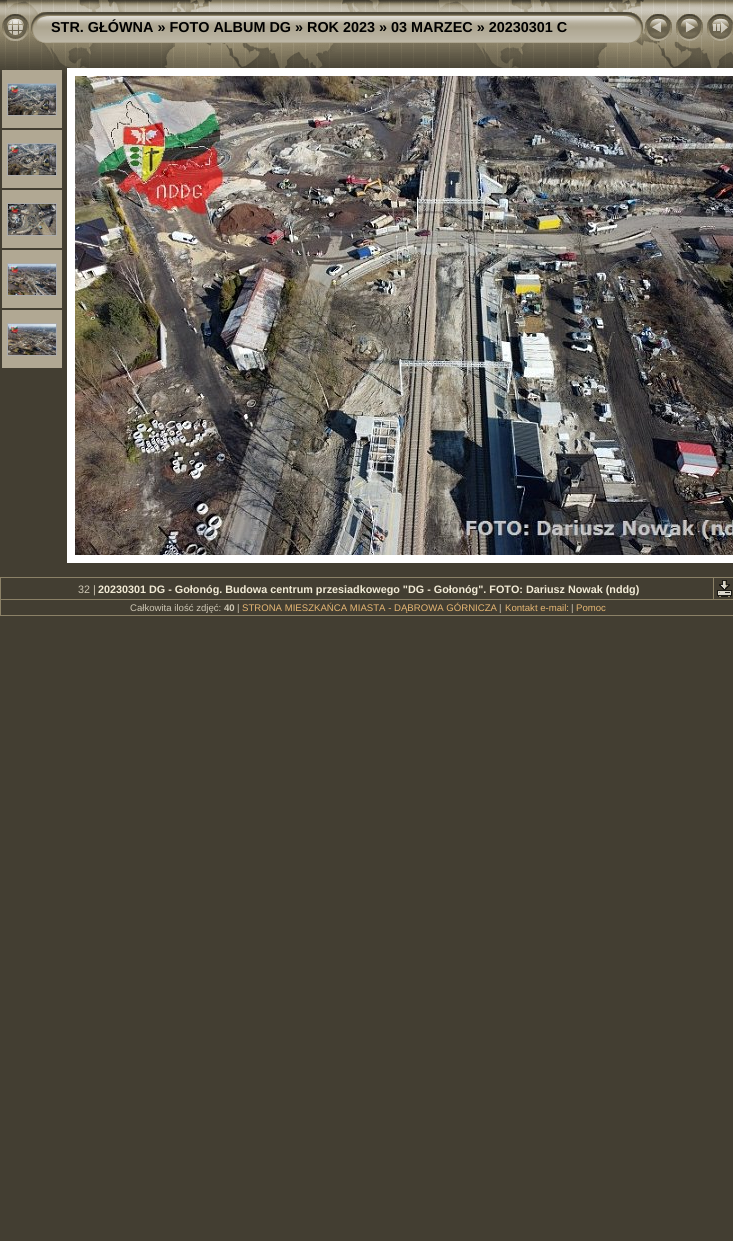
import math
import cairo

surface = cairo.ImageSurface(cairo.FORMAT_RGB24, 733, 1241)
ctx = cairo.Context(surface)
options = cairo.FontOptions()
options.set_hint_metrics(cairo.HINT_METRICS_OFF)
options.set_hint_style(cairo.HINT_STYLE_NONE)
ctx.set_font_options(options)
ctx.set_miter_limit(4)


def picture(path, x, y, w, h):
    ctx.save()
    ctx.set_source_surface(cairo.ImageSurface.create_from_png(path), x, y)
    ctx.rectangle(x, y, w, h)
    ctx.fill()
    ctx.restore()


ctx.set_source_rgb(0.263, 0.243, 0.196)
ctx.paint()
picture("img1.png", 0, 0, 733, 168)
picture("img2.png", 2, 14, 27, 27)
picture("img3.png", 31, 12, 20, 31)
picture("img4.png", 51, 12, 572, 31)
ctx.select_font_face("Liberation Sans", cairo.FONT_SLANT_NORMAL, cairo.FONT_WEIGHT_BOLD)
ctx.set_font_size(14.4)
ctx.set_source_rgb(0, 0, 0)
ctx.move_to(51, 32)
ctx.show_text("STR. GŁÓWNA » FOTO ALBUM DG » ROK 2023 » 03 MARZEC » 20230301 C")
picture("img5.png", 623, 12, 20, 31)
picture("img6.png", 645, 14, 27, 27)
picture("img7.png", 676, 14, 27, 27)
picture("img8.png", 707, 14, 26, 27)
ctx.set_source_rgb(0.694, 0.659, 0.576)
ctx.rectangle(2, 70, 60, 58)
ctx.fill()
ctx.rectangle(7.5, 83.5, 49, 32)
ctx.set_source_rgb(0.667, 0.667, 0.667)
ctx.set_line_width(1)
ctx.stroke()
picture("img9.png", 8, 84, 48, 31)
ctx.set_source_rgb(0.694, 0.659, 0.576)
ctx.rectangle(2, 130, 60, 58)
ctx.fill()
ctx.rectangle(7.5, 143.5, 49, 32)
ctx.set_source_rgb(0.667, 0.667, 0.667)
ctx.stroke()
picture("img10.png", 8, 144, 48, 31)
ctx.set_source_rgb(0.694, 0.659, 0.576)
ctx.rectangle(2, 190, 60, 58)
ctx.fill()
ctx.rectangle(7.5, 203.5, 49, 32)
ctx.set_source_rgb(0.667, 0.667, 0.667)
ctx.stroke()
picture("img11.png", 8, 204, 48, 31)
ctx.set_source_rgb(0.694, 0.659, 0.576)
ctx.rectangle(2, 250, 60, 58)
ctx.fill()
ctx.rectangle(7.5, 263.5, 49, 32)
ctx.set_source_rgb(0.667, 0.667, 0.667)
ctx.stroke()
picture("img12.png", 8, 264, 48, 31)
ctx.set_source_rgb(0.694, 0.659, 0.576)
ctx.rectangle(2, 310, 60, 58)
ctx.fill()
ctx.rectangle(7.5, 323.5, 49, 32)
ctx.set_source_rgb(0.667, 0.667, 0.667)
ctx.stroke()
picture("img13.png", 8, 324, 48, 31)
ctx.rectangle(71, 72, 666, 487)
ctx.set_source_rgb(1, 1, 1)
ctx.set_line_width(8)
ctx.stroke()
picture("img14.png", 75, 76, 658, 479)
ctx.set_source_rgb(0.545, 0.506, 0.404)
ctx.rectangle(713, 577, 20, 1)
ctx.fill()
ctx.rectangle(0, 599, 733, 1)
ctx.fill()
ctx.rectangle(713, 577, 1, 23)
ctx.fill()
ctx.rectangle(0, 577, 714, 1)
ctx.fill()
ctx.rectangle(0, 615, 733, 1)
ctx.fill()
ctx.rectangle(0, 599, 1, 17)
ctx.fill()
ctx.rectangle(0, 577, 1, 23)
ctx.fill()
ctx.select_font_face("Liberation Sans")
ctx.set_font_size(10.8)
ctx.set_source_rgb(0.804, 0.776, 0.706)
ctx.move_to(78, 593)
ctx.show_text("32 |")
ctx.select_font_face("Liberation Sans", cairo.FONT_SLANT_NORMAL, cairo.FONT_WEIGHT_BOLD)
ctx.set_source_rgb(0.949, 0.918, 0.839)
ctx.move_to(98, 593)
ctx.show_text("20230301 DG - Gołonóg. Budowa centrum przesiadkowego \"DG - Gołonóg\". FOTO: Dariusz Nowak (nddg)")
picture("img15.png", 717, 580, 15, 17)
ctx.select_font_face("Liberation Sans")
ctx.set_font_size(9.6)
ctx.set_source_rgb(0.804, 0.776, 0.706)
ctx.move_to(130, 611)
ctx.show_text("Całkowita ilość zdjęć:")
ctx.select_font_face("Liberation Sans", cairo.FONT_SLANT_NORMAL, cairo.FONT_WEIGHT_BOLD)
ctx.move_to(224, 611)
ctx.show_text("40")
ctx.select_font_face("Liberation Sans")
ctx.move_to(237, 611)
ctx.show_text("|")
ctx.set_source_rgb(0.898, 0.714, 0.451)
ctx.move_to(242, 611)
ctx.show_text("STRONA MIESZKAŃCA MIASTA - DĄBROWA GÓRNICZA")
ctx.set_source_rgb(0.804, 0.776, 0.706)
ctx.move_to(499, 611)
ctx.show_text("|")
ctx.set_source_rgb(0.898, 0.714, 0.451)
ctx.move_to(505, 611)
ctx.show_text("Kontakt e-mail:")
ctx.set_source_rgb(0.804, 0.776, 0.706)
ctx.move_to(571, 611)
ctx.show_text("|")
ctx.set_source_rgb(0.898, 0.714, 0.451)
ctx.move_to(576, 611)
ctx.show_text("Pomoc")
surface.write_to_png("page.png")
